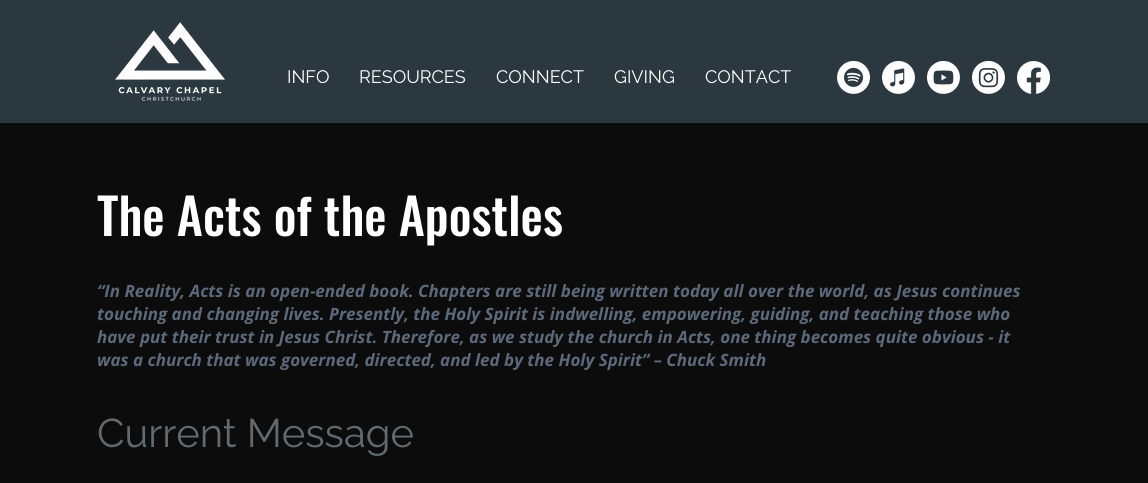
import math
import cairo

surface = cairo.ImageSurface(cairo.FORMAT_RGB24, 1148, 483)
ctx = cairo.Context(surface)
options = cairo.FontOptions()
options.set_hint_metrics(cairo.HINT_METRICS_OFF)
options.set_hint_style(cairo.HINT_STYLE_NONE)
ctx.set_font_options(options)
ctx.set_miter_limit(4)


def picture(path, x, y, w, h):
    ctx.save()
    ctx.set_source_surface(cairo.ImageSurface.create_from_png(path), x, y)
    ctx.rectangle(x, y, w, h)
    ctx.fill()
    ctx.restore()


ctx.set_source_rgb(0.047, 0.047, 0.047)
ctx.paint()
ctx.set_source_rgb(0.173, 0.22, 0.251)
ctx.rectangle(0, 0, 1148, 123)
ctx.fill()
picture("img1.png", 115, 22, 110, 80)
ctx.select_font_face("Raleway")
ctx.set_font_size(18)
ctx.set_source_rgb(1, 1, 1)
ctx.move_to(287, 83)
ctx.show_text("INFO")
ctx.move_to(359, 83)
ctx.show_text("RESOURCES")
ctx.move_to(496, 83)
ctx.show_text("CONNECT")
ctx.move_to(614, 83)
ctx.show_text("GIVING")
ctx.move_to(705, 83)
ctx.show_text("CONTACT")
picture("img2.png", 837, 61, 33, 33)
picture("img3.png", 882, 61, 33, 33)
picture("img4.png", 927, 61, 33, 33)
picture("img5.png", 972, 61, 33, 33)
picture("img6.png", 1017, 61, 33, 33)
ctx.select_font_face("Oswald Medium")
ctx.set_font_size(50)
ctx.move_to(97, 236)
ctx.show_text("The Acts of the Apostles")
ctx.select_font_face("Open Sans", cairo.FONT_SLANT_ITALIC, cairo.FONT_WEIGHT_BOLD)
ctx.set_font_size(17)
ctx.set_source_rgb(0.361, 0.412, 0.482)
ctx.move_to(97, 297)
ctx.show_text("“In Reality, Acts is an open-ended book. Chapters are still being written today all over the world, as Jesus continues")
ctx.move_to(97, 320)
ctx.show_text("touching and changing lives. Presently, the Holy Spirit is indwelling, empowering, guiding, and teaching those who")
ctx.move_to(97, 343)
ctx.show_text("have put their trust in Jesus Christ. Therefore, as we study the church in Acts, one thing becomes quite obvious - it")
ctx.move_to(97, 366)
ctx.show_text("was a church that was governed, directed, and led by the Holy Spirit” – Chuck Smith")
ctx.select_font_face("Raleway")
ctx.set_font_size(40)
ctx.set_source_rgb(0.38, 0.416, 0.439)
ctx.move_to(97, 447)
ctx.show_text("Current Message")
surface.write_to_png("page.png")
